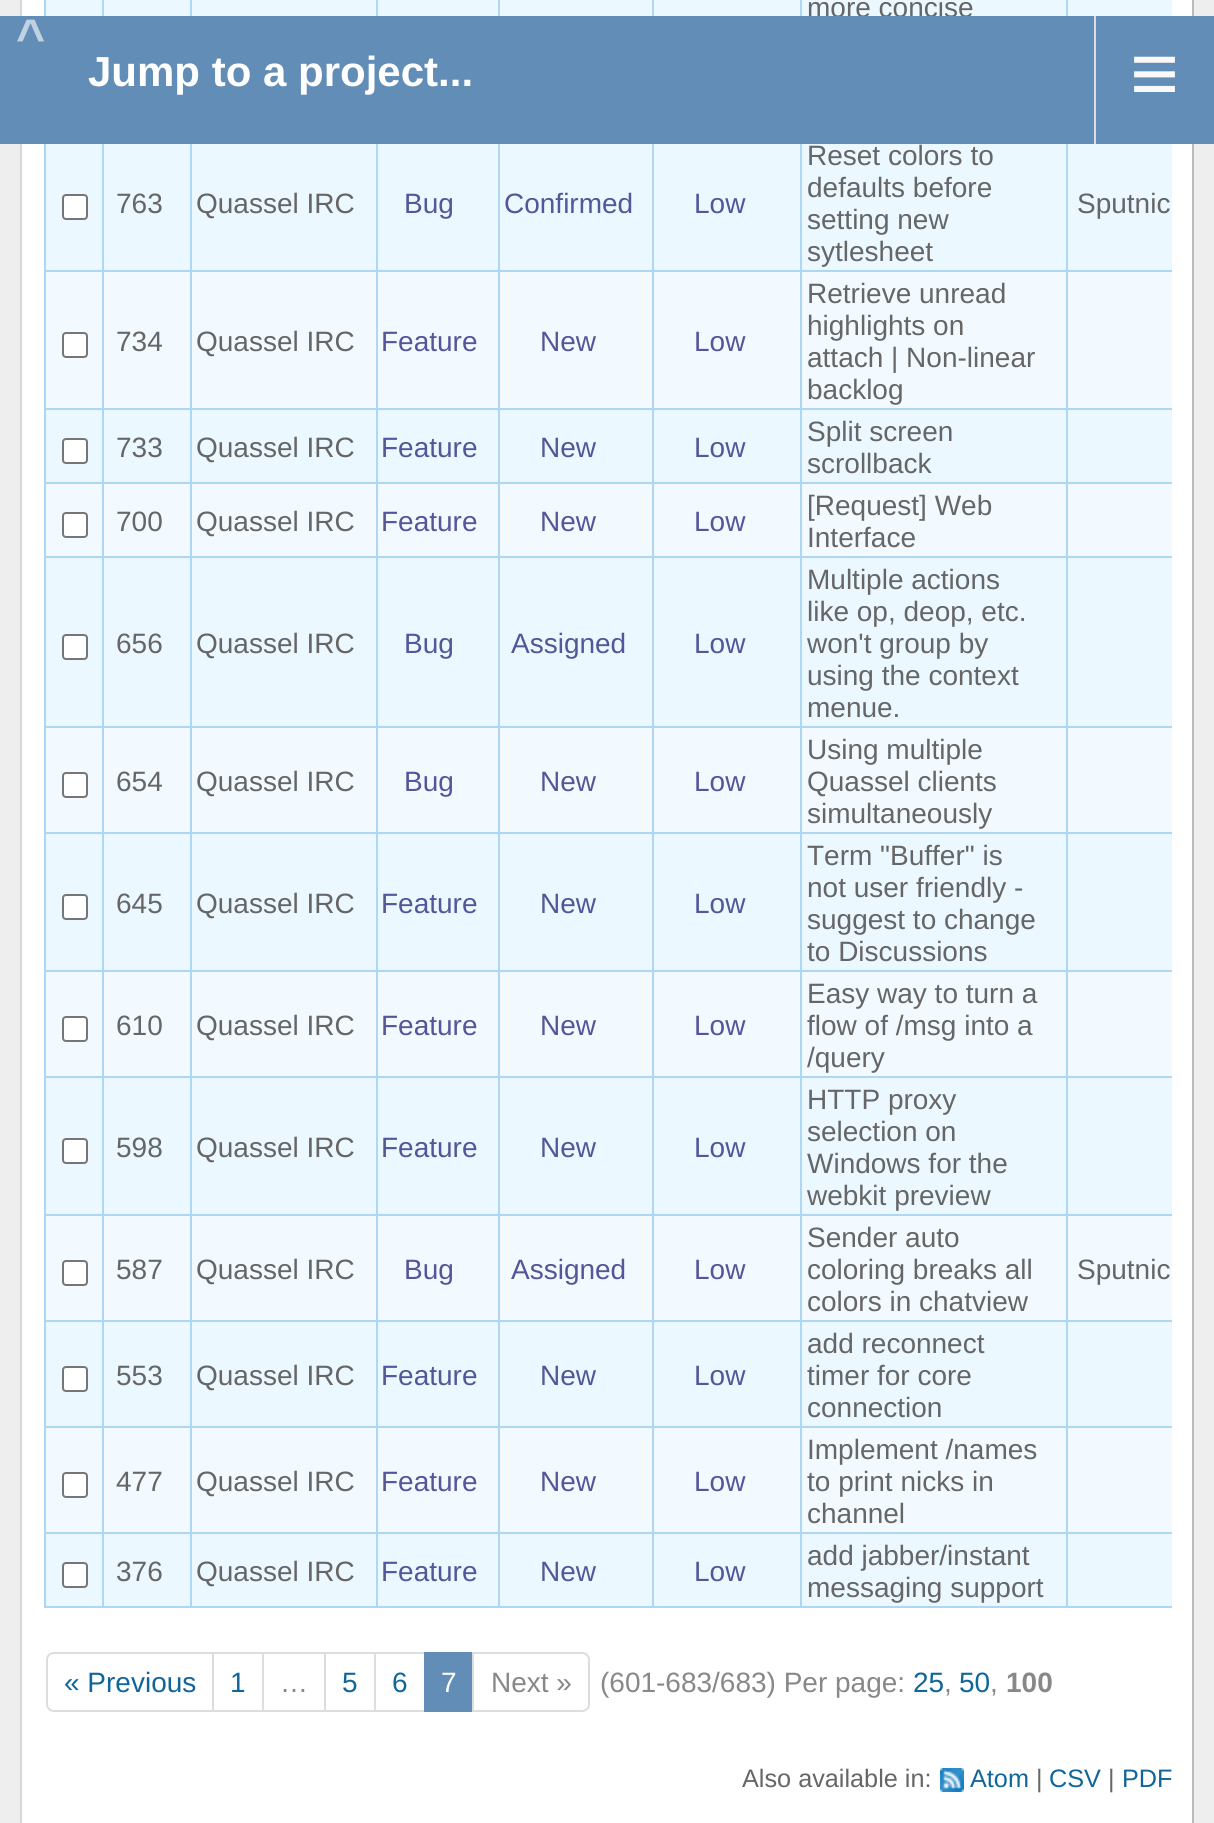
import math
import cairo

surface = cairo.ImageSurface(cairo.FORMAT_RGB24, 1214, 1823)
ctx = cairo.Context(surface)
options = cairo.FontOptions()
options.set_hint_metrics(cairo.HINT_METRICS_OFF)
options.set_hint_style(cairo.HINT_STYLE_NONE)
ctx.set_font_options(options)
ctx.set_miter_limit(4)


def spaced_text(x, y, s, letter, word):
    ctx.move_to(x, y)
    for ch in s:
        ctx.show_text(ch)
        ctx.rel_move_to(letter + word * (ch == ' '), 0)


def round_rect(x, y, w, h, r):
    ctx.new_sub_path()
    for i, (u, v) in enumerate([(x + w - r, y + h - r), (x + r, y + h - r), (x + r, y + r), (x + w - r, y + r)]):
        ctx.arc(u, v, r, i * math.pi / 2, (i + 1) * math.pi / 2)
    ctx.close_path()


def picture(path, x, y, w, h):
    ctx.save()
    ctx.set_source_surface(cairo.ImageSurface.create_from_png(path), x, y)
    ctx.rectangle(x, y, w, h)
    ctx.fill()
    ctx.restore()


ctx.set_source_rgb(0.933, 0.933, 0.933)
ctx.paint()
ctx.set_source_rgb(1, 1, 1)
ctx.rectangle(22, 0, 1170, 1823)
ctx.fill()
ctx.set_source_rgb(0.733, 0.733, 0.733)
ctx.rectangle(1192, 0, 2, 1823)
ctx.fill()
ctx.set_source_rgb(0.843, 0.843, 0.843)
ctx.rectangle(20, 0, 2, 1823)
ctx.fill()
ctx.set_source_rgb(0.918, 0.969, 1)
ctx.rectangle(46, 0, 1126, 16)
ctx.fill()
ctx.set_source_rgb(0.678, 0.843, 0.953)
ctx.rectangle(44, 0, 2, 16)
ctx.fill()
ctx.rectangle(102, 0, 2, 16)
ctx.fill()
ctx.rectangle(190, 0, 2, 16)
ctx.fill()
ctx.rectangle(376, 0, 2, 16)
ctx.fill()
ctx.rectangle(498, 0, 2, 16)
ctx.fill()
ctx.rectangle(652, 0, 2, 16)
ctx.fill()
ctx.rectangle(800, 0, 2, 16)
ctx.fill()
ctx.select_font_face("Liberation Sans")
ctx.set_font_size(28)
ctx.set_source_rgb(0.4, 0.4, 0.4)
ctx.move_to(807, 17)
ctx.show_text("more concise")
ctx.set_source_rgb(0.678, 0.843, 0.953)
ctx.rectangle(1066, 0, 2, 16)
ctx.fill()
ctx.set_source_rgb(0.918, 0.969, 1)
ctx.rectangle(46, 144, 1126, 126)
ctx.fill()
ctx.set_source_rgb(1, 1, 1)
round_rect(63, 195, 24, 24, 3)
ctx.fill_preserve()
ctx.set_source_rgb(0.463, 0.463, 0.463)
ctx.stroke()
ctx.set_source_rgb(0.678, 0.843, 0.953)
ctx.rectangle(1066, 270, 106, 2)
ctx.fill()
ctx.set_source_rgb(0.949, 0.98, 1)
ctx.rectangle(46, 272, 1126, 136)
ctx.fill()
ctx.set_source_rgb(0.678, 0.843, 0.953)
ctx.rectangle(1066, 408, 106, 2)
ctx.fill()
ctx.set_source_rgb(0.918, 0.969, 1)
ctx.rectangle(46, 410, 1126, 72)
ctx.fill()
ctx.set_source_rgb(0.678, 0.843, 0.953)
ctx.rectangle(1066, 482, 106, 2)
ctx.fill()
ctx.set_source_rgb(0.949, 0.98, 1)
ctx.rectangle(46, 484, 1126, 72)
ctx.fill()
ctx.set_source_rgb(0.678, 0.843, 0.953)
ctx.rectangle(1066, 556, 106, 2)
ctx.fill()
ctx.set_source_rgb(0.918, 0.969, 1)
ctx.rectangle(46, 558, 1126, 168)
ctx.fill()
ctx.set_source_rgb(0.678, 0.843, 0.953)
ctx.rectangle(1066, 726, 106, 2)
ctx.fill()
ctx.set_source_rgb(0.949, 0.98, 1)
ctx.rectangle(46, 728, 1126, 104)
ctx.fill()
ctx.set_source_rgb(0.678, 0.843, 0.953)
ctx.rectangle(1066, 832, 106, 2)
ctx.fill()
ctx.set_source_rgb(0.918, 0.969, 1)
ctx.rectangle(46, 834, 1126, 136)
ctx.fill()
ctx.set_source_rgb(0.678, 0.843, 0.953)
ctx.rectangle(1066, 970, 106, 2)
ctx.fill()
ctx.set_source_rgb(0.949, 0.98, 1)
ctx.rectangle(46, 972, 1126, 104)
ctx.fill()
ctx.set_source_rgb(0.678, 0.843, 0.953)
ctx.rectangle(1066, 1076, 106, 2)
ctx.fill()
ctx.set_source_rgb(0.918, 0.969, 1)
ctx.rectangle(46, 1078, 1126, 136)
ctx.fill()
ctx.set_source_rgb(0.678, 0.843, 0.953)
ctx.rectangle(1066, 1214, 106, 2)
ctx.fill()
ctx.set_source_rgb(0.949, 0.98, 1)
ctx.rectangle(46, 1216, 1126, 104)
ctx.fill()
ctx.set_source_rgb(0.678, 0.843, 0.953)
ctx.rectangle(1066, 1320, 106, 2)
ctx.fill()
ctx.set_source_rgb(0.918, 0.969, 1)
ctx.rectangle(46, 1322, 1126, 104)
ctx.fill()
ctx.set_source_rgb(0.678, 0.843, 0.953)
ctx.rectangle(1066, 1426, 106, 2)
ctx.fill()
ctx.set_source_rgb(0.949, 0.98, 1)
ctx.rectangle(46, 1428, 1126, 104)
ctx.fill()
ctx.set_source_rgb(0.678, 0.843, 0.953)
ctx.rectangle(1066, 1532, 106, 2)
ctx.fill()
ctx.set_source_rgb(0.918, 0.969, 1)
ctx.rectangle(46, 1534, 1126, 72)
ctx.fill()
ctx.set_source_rgb(0.678, 0.843, 0.953)
ctx.rectangle(1066, 1606, 106, 2)
ctx.fill()
ctx.rectangle(1066, 1532, 2, 76)
ctx.fill()
ctx.rectangle(800, 1532, 268, 2)
ctx.fill()
ctx.rectangle(1066, 1426, 2, 108)
ctx.fill()
ctx.rectangle(800, 1426, 268, 2)
ctx.fill()
ctx.rectangle(1066, 1320, 2, 108)
ctx.fill()
ctx.rectangle(800, 1320, 268, 2)
ctx.fill()
ctx.rectangle(1066, 1214, 2, 108)
ctx.fill()
ctx.rectangle(800, 1214, 268, 2)
ctx.fill()
ctx.rectangle(1066, 1076, 2, 140)
ctx.fill()
ctx.rectangle(800, 1076, 268, 2)
ctx.fill()
ctx.rectangle(1066, 970, 2, 108)
ctx.fill()
ctx.rectangle(800, 970, 268, 2)
ctx.fill()
ctx.rectangle(1066, 832, 2, 140)
ctx.fill()
ctx.rectangle(800, 832, 268, 2)
ctx.fill()
ctx.rectangle(1066, 726, 2, 108)
ctx.fill()
ctx.rectangle(800, 726, 268, 2)
ctx.fill()
ctx.rectangle(1066, 556, 2, 172)
ctx.fill()
ctx.rectangle(800, 556, 268, 2)
ctx.fill()
ctx.rectangle(1066, 482, 2, 76)
ctx.fill()
ctx.rectangle(800, 482, 268, 2)
ctx.fill()
ctx.rectangle(1066, 408, 2, 76)
ctx.fill()
ctx.rectangle(800, 408, 268, 2)
ctx.fill()
ctx.rectangle(1066, 270, 2, 140)
ctx.fill()
ctx.rectangle(800, 270, 268, 2)
ctx.fill()
ctx.rectangle(800, 1606, 268, 2)
ctx.fill()
ctx.rectangle(800, 1532, 2, 76)
ctx.fill()
ctx.rectangle(652, 1532, 150, 2)
ctx.fill()
ctx.rectangle(800, 1426, 2, 108)
ctx.fill()
ctx.rectangle(652, 1426, 150, 2)
ctx.fill()
ctx.rectangle(800, 1320, 2, 108)
ctx.fill()
ctx.rectangle(652, 1320, 150, 2)
ctx.fill()
ctx.rectangle(800, 1214, 2, 108)
ctx.fill()
ctx.rectangle(652, 1214, 150, 2)
ctx.fill()
ctx.rectangle(800, 1076, 2, 140)
ctx.fill()
ctx.rectangle(652, 1076, 150, 2)
ctx.fill()
ctx.rectangle(800, 970, 2, 108)
ctx.fill()
ctx.rectangle(652, 970, 150, 2)
ctx.fill()
ctx.rectangle(800, 832, 2, 140)
ctx.fill()
ctx.rectangle(652, 832, 150, 2)
ctx.fill()
ctx.rectangle(800, 726, 2, 108)
ctx.fill()
ctx.rectangle(652, 726, 150, 2)
ctx.fill()
ctx.rectangle(800, 556, 2, 172)
ctx.fill()
ctx.rectangle(652, 556, 150, 2)
ctx.fill()
ctx.rectangle(800, 482, 2, 76)
ctx.fill()
ctx.rectangle(652, 482, 150, 2)
ctx.fill()
ctx.rectangle(800, 408, 2, 76)
ctx.fill()
ctx.rectangle(652, 408, 150, 2)
ctx.fill()
ctx.rectangle(800, 270, 2, 140)
ctx.fill()
ctx.rectangle(652, 270, 150, 2)
ctx.fill()
ctx.rectangle(652, 1606, 150, 2)
ctx.fill()
ctx.rectangle(652, 1532, 2, 76)
ctx.fill()
ctx.rectangle(498, 1532, 156, 2)
ctx.fill()
ctx.rectangle(652, 1426, 2, 108)
ctx.fill()
ctx.rectangle(498, 1426, 156, 2)
ctx.fill()
ctx.rectangle(652, 1320, 2, 108)
ctx.fill()
ctx.rectangle(498, 1320, 156, 2)
ctx.fill()
ctx.rectangle(652, 1214, 2, 108)
ctx.fill()
ctx.rectangle(498, 1214, 156, 2)
ctx.fill()
ctx.rectangle(652, 1076, 2, 140)
ctx.fill()
ctx.rectangle(498, 1076, 156, 2)
ctx.fill()
ctx.rectangle(652, 970, 2, 108)
ctx.fill()
ctx.rectangle(498, 970, 156, 2)
ctx.fill()
ctx.rectangle(652, 832, 2, 140)
ctx.fill()
ctx.rectangle(498, 832, 156, 2)
ctx.fill()
ctx.rectangle(652, 726, 2, 108)
ctx.fill()
ctx.rectangle(498, 726, 156, 2)
ctx.fill()
ctx.rectangle(652, 556, 2, 172)
ctx.fill()
ctx.rectangle(498, 556, 156, 2)
ctx.fill()
ctx.rectangle(652, 482, 2, 76)
ctx.fill()
ctx.rectangle(498, 482, 156, 2)
ctx.fill()
ctx.rectangle(652, 408, 2, 76)
ctx.fill()
ctx.rectangle(498, 408, 156, 2)
ctx.fill()
ctx.rectangle(652, 270, 2, 140)
ctx.fill()
ctx.rectangle(498, 270, 156, 2)
ctx.fill()
ctx.rectangle(498, 1606, 156, 2)
ctx.fill()
ctx.rectangle(498, 1532, 2, 76)
ctx.fill()
ctx.rectangle(376, 1532, 124, 2)
ctx.fill()
ctx.rectangle(498, 1426, 2, 108)
ctx.fill()
ctx.rectangle(376, 1426, 124, 2)
ctx.fill()
ctx.rectangle(498, 1320, 2, 108)
ctx.fill()
ctx.rectangle(376, 1320, 124, 2)
ctx.fill()
ctx.rectangle(498, 1214, 2, 108)
ctx.fill()
ctx.rectangle(376, 1214, 124, 2)
ctx.fill()
ctx.rectangle(498, 1076, 2, 140)
ctx.fill()
ctx.rectangle(376, 1076, 124, 2)
ctx.fill()
ctx.rectangle(498, 970, 2, 108)
ctx.fill()
ctx.rectangle(376, 970, 124, 2)
ctx.fill()
ctx.rectangle(498, 832, 2, 140)
ctx.fill()
ctx.rectangle(376, 832, 124, 2)
ctx.fill()
ctx.rectangle(498, 726, 2, 108)
ctx.fill()
ctx.rectangle(376, 726, 124, 2)
ctx.fill()
ctx.rectangle(498, 556, 2, 172)
ctx.fill()
ctx.rectangle(376, 556, 124, 2)
ctx.fill()
ctx.rectangle(498, 482, 2, 76)
ctx.fill()
ctx.rectangle(376, 482, 124, 2)
ctx.fill()
ctx.rectangle(498, 408, 2, 76)
ctx.fill()
ctx.rectangle(376, 408, 124, 2)
ctx.fill()
ctx.rectangle(498, 270, 2, 140)
ctx.fill()
ctx.rectangle(376, 270, 124, 2)
ctx.fill()
ctx.rectangle(376, 1606, 124, 2)
ctx.fill()
ctx.rectangle(376, 1532, 2, 76)
ctx.fill()
ctx.rectangle(190, 1532, 188, 2)
ctx.fill()
ctx.rectangle(376, 1426, 2, 108)
ctx.fill()
ctx.rectangle(190, 1426, 188, 2)
ctx.fill()
ctx.rectangle(376, 1320, 2, 108)
ctx.fill()
ctx.rectangle(190, 1320, 188, 2)
ctx.fill()
ctx.rectangle(376, 1214, 2, 108)
ctx.fill()
ctx.rectangle(190, 1214, 188, 2)
ctx.fill()
ctx.rectangle(376, 1076, 2, 140)
ctx.fill()
ctx.rectangle(190, 1076, 188, 2)
ctx.fill()
ctx.rectangle(376, 970, 2, 108)
ctx.fill()
ctx.rectangle(190, 970, 188, 2)
ctx.fill()
ctx.rectangle(376, 832, 2, 140)
ctx.fill()
ctx.rectangle(190, 832, 188, 2)
ctx.fill()
ctx.rectangle(376, 726, 2, 108)
ctx.fill()
ctx.rectangle(190, 726, 188, 2)
ctx.fill()
ctx.rectangle(376, 556, 2, 172)
ctx.fill()
ctx.rectangle(190, 556, 188, 2)
ctx.fill()
ctx.rectangle(376, 482, 2, 76)
ctx.fill()
ctx.rectangle(190, 482, 188, 2)
ctx.fill()
ctx.rectangle(376, 408, 2, 76)
ctx.fill()
ctx.rectangle(190, 408, 188, 2)
ctx.fill()
ctx.rectangle(376, 270, 2, 140)
ctx.fill()
ctx.rectangle(190, 270, 188, 2)
ctx.fill()
ctx.rectangle(190, 1606, 188, 2)
ctx.fill()
ctx.rectangle(190, 1532, 2, 76)
ctx.fill()
ctx.rectangle(102, 1532, 90, 2)
ctx.fill()
ctx.rectangle(190, 1426, 2, 108)
ctx.fill()
ctx.rectangle(102, 1426, 90, 2)
ctx.fill()
ctx.rectangle(190, 1320, 2, 108)
ctx.fill()
ctx.rectangle(102, 1320, 90, 2)
ctx.fill()
ctx.rectangle(190, 1214, 2, 108)
ctx.fill()
ctx.rectangle(102, 1214, 90, 2)
ctx.fill()
ctx.rectangle(190, 1076, 2, 140)
ctx.fill()
ctx.rectangle(102, 1076, 90, 2)
ctx.fill()
ctx.rectangle(190, 970, 2, 108)
ctx.fill()
ctx.rectangle(102, 970, 90, 2)
ctx.fill()
ctx.rectangle(190, 832, 2, 140)
ctx.fill()
ctx.rectangle(102, 832, 90, 2)
ctx.fill()
ctx.rectangle(190, 726, 2, 108)
ctx.fill()
ctx.rectangle(102, 726, 90, 2)
ctx.fill()
ctx.rectangle(190, 556, 2, 172)
ctx.fill()
ctx.rectangle(102, 556, 90, 2)
ctx.fill()
ctx.rectangle(190, 482, 2, 76)
ctx.fill()
ctx.rectangle(102, 482, 90, 2)
ctx.fill()
ctx.rectangle(190, 408, 2, 76)
ctx.fill()
ctx.rectangle(102, 408, 90, 2)
ctx.fill()
ctx.rectangle(190, 270, 2, 140)
ctx.fill()
ctx.rectangle(102, 270, 90, 2)
ctx.fill()
ctx.rectangle(102, 1606, 90, 2)
ctx.fill()
ctx.rectangle(102, 1532, 2, 76)
ctx.fill()
ctx.rectangle(44, 1532, 60, 2)
ctx.fill()
ctx.rectangle(102, 1426, 2, 108)
ctx.fill()
ctx.rectangle(44, 1426, 60, 2)
ctx.fill()
ctx.rectangle(102, 1320, 2, 108)
ctx.fill()
ctx.rectangle(44, 1320, 60, 2)
ctx.fill()
ctx.rectangle(102, 1214, 2, 108)
ctx.fill()
ctx.rectangle(44, 1214, 60, 2)
ctx.fill()
ctx.rectangle(102, 1076, 2, 140)
ctx.fill()
ctx.rectangle(44, 1076, 60, 2)
ctx.fill()
ctx.rectangle(102, 970, 2, 108)
ctx.fill()
ctx.rectangle(44, 970, 60, 2)
ctx.fill()
ctx.rectangle(102, 832, 2, 140)
ctx.fill()
ctx.rectangle(44, 832, 60, 2)
ctx.fill()
ctx.rectangle(102, 726, 2, 108)
ctx.fill()
ctx.rectangle(44, 726, 60, 2)
ctx.fill()
ctx.rectangle(102, 556, 2, 172)
ctx.fill()
ctx.rectangle(44, 556, 60, 2)
ctx.fill()
ctx.rectangle(102, 482, 2, 76)
ctx.fill()
ctx.rectangle(44, 482, 60, 2)
ctx.fill()
ctx.rectangle(102, 408, 2, 76)
ctx.fill()
ctx.rectangle(44, 408, 60, 2)
ctx.fill()
ctx.rectangle(102, 270, 2, 140)
ctx.fill()
ctx.rectangle(44, 270, 60, 2)
ctx.fill()
ctx.rectangle(102, 144, 2, 128)
ctx.fill()
ctx.set_source_rgb(0.4, 0.4, 0.4)
ctx.move_to(116, 213)
ctx.show_text("763")
ctx.set_source_rgb(0.678, 0.843, 0.953)
ctx.rectangle(190, 144, 2, 128)
ctx.fill()
ctx.set_source_rgb(0.4, 0.4, 0.4)
ctx.move_to(196, 213)
ctx.show_text("Quassel IRC")
ctx.set_source_rgb(0.678, 0.843, 0.953)
ctx.rectangle(376, 144, 2, 128)
ctx.fill()
ctx.set_source_rgb(0.333, 0.333, 0.6)
ctx.move_to(404, 213)
ctx.show_text("Bug")
ctx.set_source_rgb(0.678, 0.843, 0.953)
ctx.rectangle(498, 144, 2, 128)
ctx.fill()
ctx.set_source_rgb(0.333, 0.333, 0.6)
ctx.move_to(504, 213)
ctx.show_text("Confirmed")
ctx.set_source_rgb(0.678, 0.843, 0.953)
ctx.rectangle(652, 144, 2, 128)
ctx.fill()
ctx.set_source_rgb(0.333, 0.333, 0.6)
ctx.move_to(694, 213)
ctx.show_text("Low")
ctx.set_source_rgb(0.678, 0.843, 0.953)
ctx.rectangle(800, 144, 2, 128)
ctx.fill()
ctx.set_source_rgb(0.4, 0.4, 0.4)
ctx.move_to(807, 165)
ctx.show_text("Reset colors to")
ctx.move_to(807, 197)
ctx.show_text("defaults before")
ctx.move_to(807, 229)
ctx.show_text("setting new")
ctx.move_to(807, 261)
ctx.show_text("sytlesheet")
ctx.set_source_rgb(0.678, 0.843, 0.953)
ctx.rectangle(1066, 144, 2, 128)
ctx.fill()
ctx.set_source_rgb(0.4, 0.4, 0.4)
ctx.move_to(1077, 213)
ctx.show_text("Sputnic")
ctx.set_source_rgb(0.678, 0.843, 0.953)
ctx.rectangle(44, 1606, 60, 2)
ctx.fill()
ctx.rectangle(44, 1532, 2, 76)
ctx.fill()
ctx.rectangle(44, 1426, 2, 108)
ctx.fill()
ctx.rectangle(44, 1320, 2, 108)
ctx.fill()
ctx.rectangle(44, 1214, 2, 108)
ctx.fill()
ctx.rectangle(44, 1076, 2, 140)
ctx.fill()
ctx.rectangle(44, 970, 2, 108)
ctx.fill()
ctx.rectangle(44, 832, 2, 140)
ctx.fill()
ctx.rectangle(44, 726, 2, 108)
ctx.fill()
ctx.rectangle(44, 556, 2, 172)
ctx.fill()
ctx.rectangle(44, 482, 2, 76)
ctx.fill()
ctx.rectangle(44, 408, 2, 76)
ctx.fill()
ctx.rectangle(44, 144, 2, 266)
ctx.fill()
ctx.set_source_rgb(1, 1, 1)
round_rect(63, 333, 24, 24, 3)
ctx.fill_preserve()
ctx.set_source_rgb(0.463, 0.463, 0.463)
ctx.stroke()
ctx.set_source_rgb(0.4, 0.4, 0.4)
ctx.move_to(116, 351)
ctx.show_text("734")
ctx.move_to(196, 351)
ctx.show_text("Quassel IRC")
ctx.set_source_rgb(0.333, 0.333, 0.6)
ctx.move_to(381, 351)
ctx.show_text("Feature")
ctx.move_to(540, 351)
ctx.show_text("New")
ctx.move_to(694, 351)
ctx.show_text("Low")
ctx.set_source_rgb(0.4, 0.4, 0.4)
ctx.move_to(807, 303)
ctx.show_text("Retrieve unread")
ctx.move_to(807, 335)
ctx.show_text("highlights on")
ctx.move_to(807, 367)
ctx.show_text("attach | Non-linear")
ctx.move_to(807, 399)
ctx.show_text("backlog")
ctx.set_source_rgb(1, 1, 1)
round_rect(63, 439, 24, 24, 3)
ctx.fill_preserve()
ctx.set_source_rgb(0.463, 0.463, 0.463)
ctx.stroke()
ctx.set_source_rgb(0.4, 0.4, 0.4)
ctx.move_to(116, 457)
ctx.show_text("733")
ctx.move_to(196, 457)
ctx.show_text("Quassel IRC")
ctx.set_source_rgb(0.333, 0.333, 0.6)
ctx.move_to(381, 457)
ctx.show_text("Feature")
ctx.move_to(540, 457)
ctx.show_text("New")
ctx.move_to(694, 457)
ctx.show_text("Low")
ctx.set_source_rgb(0.4, 0.4, 0.4)
ctx.move_to(807, 441)
ctx.show_text("Split screen")
ctx.move_to(807, 473)
ctx.show_text("scrollback")
ctx.set_source_rgb(1, 1, 1)
round_rect(63, 513, 24, 24, 3)
ctx.fill_preserve()
ctx.set_source_rgb(0.463, 0.463, 0.463)
ctx.stroke()
ctx.set_source_rgb(0.4, 0.4, 0.4)
ctx.move_to(116, 531)
ctx.show_text("700")
ctx.move_to(196, 531)
ctx.show_text("Quassel IRC")
ctx.set_source_rgb(0.333, 0.333, 0.6)
ctx.move_to(381, 531)
ctx.show_text("Feature")
ctx.move_to(540, 531)
ctx.show_text("New")
ctx.move_to(694, 531)
ctx.show_text("Low")
ctx.set_source_rgb(0.4, 0.4, 0.4)
ctx.move_to(807, 515)
ctx.show_text("[Request] Web")
ctx.move_to(807, 547)
ctx.show_text("Interface")
ctx.set_source_rgb(1, 1, 1)
round_rect(63, 635, 24, 24, 3)
ctx.fill_preserve()
ctx.set_source_rgb(0.463, 0.463, 0.463)
ctx.stroke()
ctx.set_source_rgb(0.4, 0.4, 0.4)
ctx.move_to(116, 653)
ctx.show_text("656")
ctx.move_to(196, 653)
ctx.show_text("Quassel IRC")
ctx.set_source_rgb(0.333, 0.333, 0.6)
ctx.move_to(404, 653)
ctx.show_text("Bug")
ctx.move_to(511, 653)
ctx.show_text("Assigned")
ctx.move_to(694, 653)
ctx.show_text("Low")
ctx.set_source_rgb(0.4, 0.4, 0.4)
ctx.move_to(807, 589)
ctx.show_text("Multiple actions")
ctx.move_to(807, 621)
ctx.show_text("like op, deop, etc.")
ctx.move_to(807, 653)
ctx.show_text("won't group by")
ctx.move_to(807, 685)
ctx.show_text("using the context")
ctx.move_to(807, 717)
ctx.show_text("menue.")
ctx.set_source_rgb(1, 1, 1)
round_rect(63, 773, 24, 24, 3)
ctx.fill_preserve()
ctx.set_source_rgb(0.463, 0.463, 0.463)
ctx.stroke()
ctx.set_source_rgb(0.4, 0.4, 0.4)
ctx.move_to(116, 791)
ctx.show_text("654")
ctx.move_to(196, 791)
ctx.show_text("Quassel IRC")
ctx.set_source_rgb(0.333, 0.333, 0.6)
ctx.move_to(404, 791)
ctx.show_text("Bug")
ctx.move_to(540, 791)
ctx.show_text("New")
ctx.move_to(694, 791)
ctx.show_text("Low")
ctx.set_source_rgb(0.4, 0.4, 0.4)
ctx.move_to(807, 759)
ctx.show_text("Using multiple")
ctx.move_to(807, 791)
ctx.show_text("Quassel clients")
ctx.move_to(807, 823)
ctx.show_text("simultaneously")
ctx.set_source_rgb(1, 1, 1)
round_rect(63, 895, 24, 24, 3)
ctx.fill_preserve()
ctx.set_source_rgb(0.463, 0.463, 0.463)
ctx.stroke()
ctx.set_source_rgb(0.4, 0.4, 0.4)
ctx.move_to(116, 913)
ctx.show_text("645")
ctx.move_to(196, 913)
ctx.show_text("Quassel IRC")
ctx.set_source_rgb(0.333, 0.333, 0.6)
ctx.move_to(381, 913)
ctx.show_text("Feature")
ctx.move_to(540, 913)
ctx.show_text("New")
ctx.move_to(694, 913)
ctx.show_text("Low")
ctx.set_source_rgb(0.4, 0.4, 0.4)
ctx.move_to(807, 865)
ctx.show_text("Term \"Buffer\" is")
ctx.move_to(807, 897)
ctx.show_text("not user friendly -")
ctx.move_to(807, 929)
ctx.show_text("suggest to change")
ctx.move_to(807, 961)
ctx.show_text("to Discussions")
ctx.set_source_rgb(1, 1, 1)
round_rect(63, 1017, 24, 24, 3)
ctx.fill_preserve()
ctx.set_source_rgb(0.463, 0.463, 0.463)
ctx.stroke()
ctx.set_source_rgb(0.4, 0.4, 0.4)
ctx.move_to(116, 1035)
ctx.show_text("610")
ctx.move_to(196, 1035)
ctx.show_text("Quassel IRC")
ctx.set_source_rgb(0.333, 0.333, 0.6)
ctx.move_to(381, 1035)
ctx.show_text("Feature")
ctx.move_to(540, 1035)
ctx.show_text("New")
ctx.move_to(694, 1035)
ctx.show_text("Low")
ctx.set_source_rgb(0.4, 0.4, 0.4)
ctx.move_to(807, 1003)
ctx.show_text("Easy way to turn a")
ctx.move_to(807, 1035)
ctx.show_text("flow of /msg into a")
ctx.move_to(807, 1067)
ctx.show_text("/query")
ctx.set_source_rgb(1, 1, 1)
round_rect(63, 1139, 24, 24, 3)
ctx.fill_preserve()
ctx.set_source_rgb(0.463, 0.463, 0.463)
ctx.stroke()
ctx.set_source_rgb(0.4, 0.4, 0.4)
ctx.move_to(116, 1157)
ctx.show_text("598")
ctx.move_to(196, 1157)
ctx.show_text("Quassel IRC")
ctx.set_source_rgb(0.333, 0.333, 0.6)
ctx.move_to(381, 1157)
ctx.show_text("Feature")
ctx.move_to(540, 1157)
ctx.show_text("New")
ctx.move_to(694, 1157)
ctx.show_text("Low")
ctx.set_source_rgb(0.4, 0.4, 0.4)
ctx.move_to(807, 1109)
ctx.show_text("HTTP proxy")
ctx.move_to(807, 1141)
ctx.show_text("selection on")
ctx.move_to(807, 1173)
ctx.show_text("Windows for the")
ctx.move_to(807, 1205)
ctx.show_text("webkit preview")
ctx.set_source_rgb(1, 1, 1)
round_rect(63, 1261, 24, 24, 3)
ctx.fill_preserve()
ctx.set_source_rgb(0.463, 0.463, 0.463)
ctx.stroke()
ctx.set_source_rgb(0.4, 0.4, 0.4)
ctx.move_to(116, 1279)
ctx.show_text("587")
ctx.move_to(196, 1279)
ctx.show_text("Quassel IRC")
ctx.set_source_rgb(0.333, 0.333, 0.6)
ctx.move_to(404, 1279)
ctx.show_text("Bug")
ctx.move_to(511, 1279)
ctx.show_text("Assigned")
ctx.move_to(694, 1279)
ctx.show_text("Low")
ctx.set_source_rgb(0.4, 0.4, 0.4)
ctx.move_to(807, 1247)
ctx.show_text("Sender auto")
ctx.move_to(807, 1279)
ctx.show_text("coloring breaks all")
ctx.move_to(807, 1311)
ctx.show_text("colors in chatview")
ctx.move_to(1077, 1279)
ctx.show_text("Sputnic")
ctx.set_source_rgb(1, 1, 1)
round_rect(63, 1367, 24, 24, 3)
ctx.fill_preserve()
ctx.set_source_rgb(0.463, 0.463, 0.463)
ctx.stroke()
ctx.set_source_rgb(0.4, 0.4, 0.4)
ctx.move_to(116, 1385)
ctx.show_text("553")
ctx.move_to(196, 1385)
ctx.show_text("Quassel IRC")
ctx.set_source_rgb(0.333, 0.333, 0.6)
ctx.move_to(381, 1385)
ctx.show_text("Feature")
ctx.move_to(540, 1385)
ctx.show_text("New")
ctx.move_to(694, 1385)
ctx.show_text("Low")
ctx.set_source_rgb(0.4, 0.4, 0.4)
ctx.move_to(807, 1353)
ctx.show_text("add reconnect")
ctx.move_to(807, 1385)
ctx.show_text("timer for core")
ctx.move_to(807, 1417)
ctx.show_text("connection")
ctx.set_source_rgb(1, 1, 1)
round_rect(63, 1473, 24, 24, 3)
ctx.fill_preserve()
ctx.set_source_rgb(0.463, 0.463, 0.463)
ctx.stroke()
ctx.set_source_rgb(0.4, 0.4, 0.4)
ctx.move_to(116, 1491)
ctx.show_text("477")
ctx.move_to(196, 1491)
ctx.show_text("Quassel IRC")
ctx.set_source_rgb(0.333, 0.333, 0.6)
ctx.move_to(381, 1491)
ctx.show_text("Feature")
ctx.move_to(540, 1491)
ctx.show_text("New")
ctx.move_to(694, 1491)
ctx.show_text("Low")
ctx.set_source_rgb(0.4, 0.4, 0.4)
ctx.move_to(807, 1459)
ctx.show_text("Implement /names")
ctx.move_to(807, 1491)
ctx.show_text("to print nicks in")
ctx.move_to(807, 1523)
ctx.show_text("channel")
ctx.set_source_rgb(1, 1, 1)
round_rect(63, 1563, 24, 24, 3)
ctx.fill_preserve()
ctx.set_source_rgb(0.463, 0.463, 0.463)
ctx.stroke()
ctx.set_source_rgb(0.4, 0.4, 0.4)
ctx.move_to(116, 1581)
ctx.show_text("376")
ctx.move_to(196, 1581)
ctx.show_text("Quassel IRC")
ctx.set_source_rgb(0.333, 0.333, 0.6)
ctx.move_to(381, 1581)
ctx.show_text("Feature")
ctx.move_to(540, 1581)
ctx.show_text("New")
ctx.move_to(694, 1581)
ctx.show_text("Low")
ctx.set_source_rgb(0.4, 0.4, 0.4)
ctx.move_to(807, 1565)
ctx.show_text("add jabber/instant")
ctx.move_to(807, 1597)
ctx.show_text("messaging support")
ctx.new_path()
ctx.move_to(54, 1653)
ctx.line_to(213, 1653)
ctx.line_to(213, 1711)
ctx.line_to(54, 1711)
ctx.curve_to(50, 1711, 47, 1708, 47, 1704)
ctx.line_to(47, 1660)
ctx.curve_to(47, 1656, 50, 1653, 54, 1653)
ctx.close_path()
ctx.set_source_rgb(0.867, 0.867, 0.867)
ctx.stroke()
ctx.set_source_rgb(0.067, 0.4, 0.6)
ctx.move_to(64, 1692)
ctx.show_text("« Previous")
ctx.rectangle(213, 1653, 50, 58)
ctx.set_source_rgb(0.867, 0.867, 0.867)
ctx.stroke()
ctx.set_source_rgb(0.067, 0.4, 0.6)
ctx.move_to(230, 1692)
ctx.show_text("1")
ctx.rectangle(263, 1653, 62, 58)
ctx.set_source_rgb(0.867, 0.867, 0.867)
ctx.stroke()
ctx.set_source_rgb(0.533, 0.533, 0.533)
ctx.move_to(280, 1692)
ctx.show_text("…")
ctx.rectangle(325, 1653, 50, 58)
ctx.set_source_rgb(0.867, 0.867, 0.867)
ctx.stroke()
ctx.set_source_rgb(0.067, 0.4, 0.6)
ctx.move_to(342, 1692)
ctx.show_text("5")
ctx.rectangle(375, 1653, 50, 58)
ctx.set_source_rgb(0.867, 0.867, 0.867)
ctx.stroke()
ctx.set_source_rgb(0.067, 0.4, 0.6)
ctx.move_to(392, 1692)
ctx.show_text("6")
ctx.set_source_rgb(0.384, 0.553, 0.714)
ctx.rectangle(424, 1652, 48, 60)
ctx.fill()
ctx.set_source_rgb(1, 1, 1)
ctx.move_to(441, 1692)
ctx.show_text("7")
ctx.new_path()
ctx.move_to(473, 1653)
ctx.line_to(582, 1653)
ctx.curve_to(586, 1653, 589, 1656, 589, 1660)
ctx.line_to(589, 1704)
ctx.curve_to(589, 1708, 586, 1711, 582, 1711)
ctx.line_to(473, 1711)
ctx.close_path()
ctx.set_source_rgb(0.867, 0.867, 0.867)
ctx.stroke()
ctx.set_source_rgb(0.533, 0.533, 0.533)
ctx.move_to(491, 1692)
ctx.show_text("Next »")
ctx.move_to(600, 1692)
ctx.show_text("(601-683/683) Per page:")
ctx.set_source_rgb(0.067, 0.4, 0.6)
ctx.move_to(913, 1692)
ctx.show_text("25")
ctx.set_source_rgb(0.533, 0.533, 0.533)
ctx.move_to(944, 1692)
ctx.show_text(",")
ctx.set_source_rgb(0.067, 0.4, 0.6)
ctx.move_to(959, 1692)
ctx.show_text("50")
ctx.set_source_rgb(0.533, 0.533, 0.533)
ctx.move_to(990, 1692)
ctx.show_text(",")
ctx.select_font_face("Liberation Sans", cairo.FONT_SLANT_NORMAL, cairo.FONT_WEIGHT_BOLD)
ctx.move_to(1006, 1692)
ctx.show_text("100")
ctx.select_font_face("Liberation Sans")
ctx.set_font_size(25.25)
ctx.set_source_rgb(0.4, 0.4, 0.4)
ctx.move_to(742, 1787)
ctx.show_text("Also available in:")
picture("img1.png", 940, 1768, 24, 24)
ctx.set_source_rgb(0.067, 0.4, 0.6)
ctx.move_to(970, 1787)
ctx.show_text("Atom")
ctx.set_source_rgb(0.4, 0.4, 0.4)
ctx.move_to(1036, 1787)
ctx.show_text("|")
ctx.set_source_rgb(0.067, 0.4, 0.6)
ctx.move_to(1049, 1787)
ctx.show_text("CSV")
ctx.set_source_rgb(0.4, 0.4, 0.4)
ctx.move_to(1108, 1787)
ctx.show_text("|")
ctx.set_source_rgb(0.067, 0.4, 0.6)
ctx.move_to(1122, 1787)
ctx.show_text("PDF")
ctx.set_source_rgb(0.384, 0.553, 0.714)
ctx.rectangle(0, 16, 1214, 128)
ctx.fill()
ctx.select_font_face("Liberation Sans", cairo.FONT_SLANT_NORMAL, cairo.FONT_WEIGHT_BOLD)
ctx.set_font_size(50)
ctx.set_source_rgb(0.753, 0.82, 0.886)
spaced_text(16, 54, "^", 7, 0)
ctx.set_font_size(42)
ctx.set_source_rgb(1, 1, 1)
ctx.move_to(88, 86)
ctx.show_text("Jump to a project...")
ctx.set_source_rgb(0.867, 0.867, 0.867)
ctx.rectangle(1094, 16, 2, 128)
ctx.fill()
ctx.select_font_face("Liberation Sans")
ctx.set_font_size(84)
ctx.set_source_rgb(0.973, 0.973, 0.973)
ctx.move_to(1130, 102)
ctx.show_text("≡")
surface.write_to_png("page.png")
